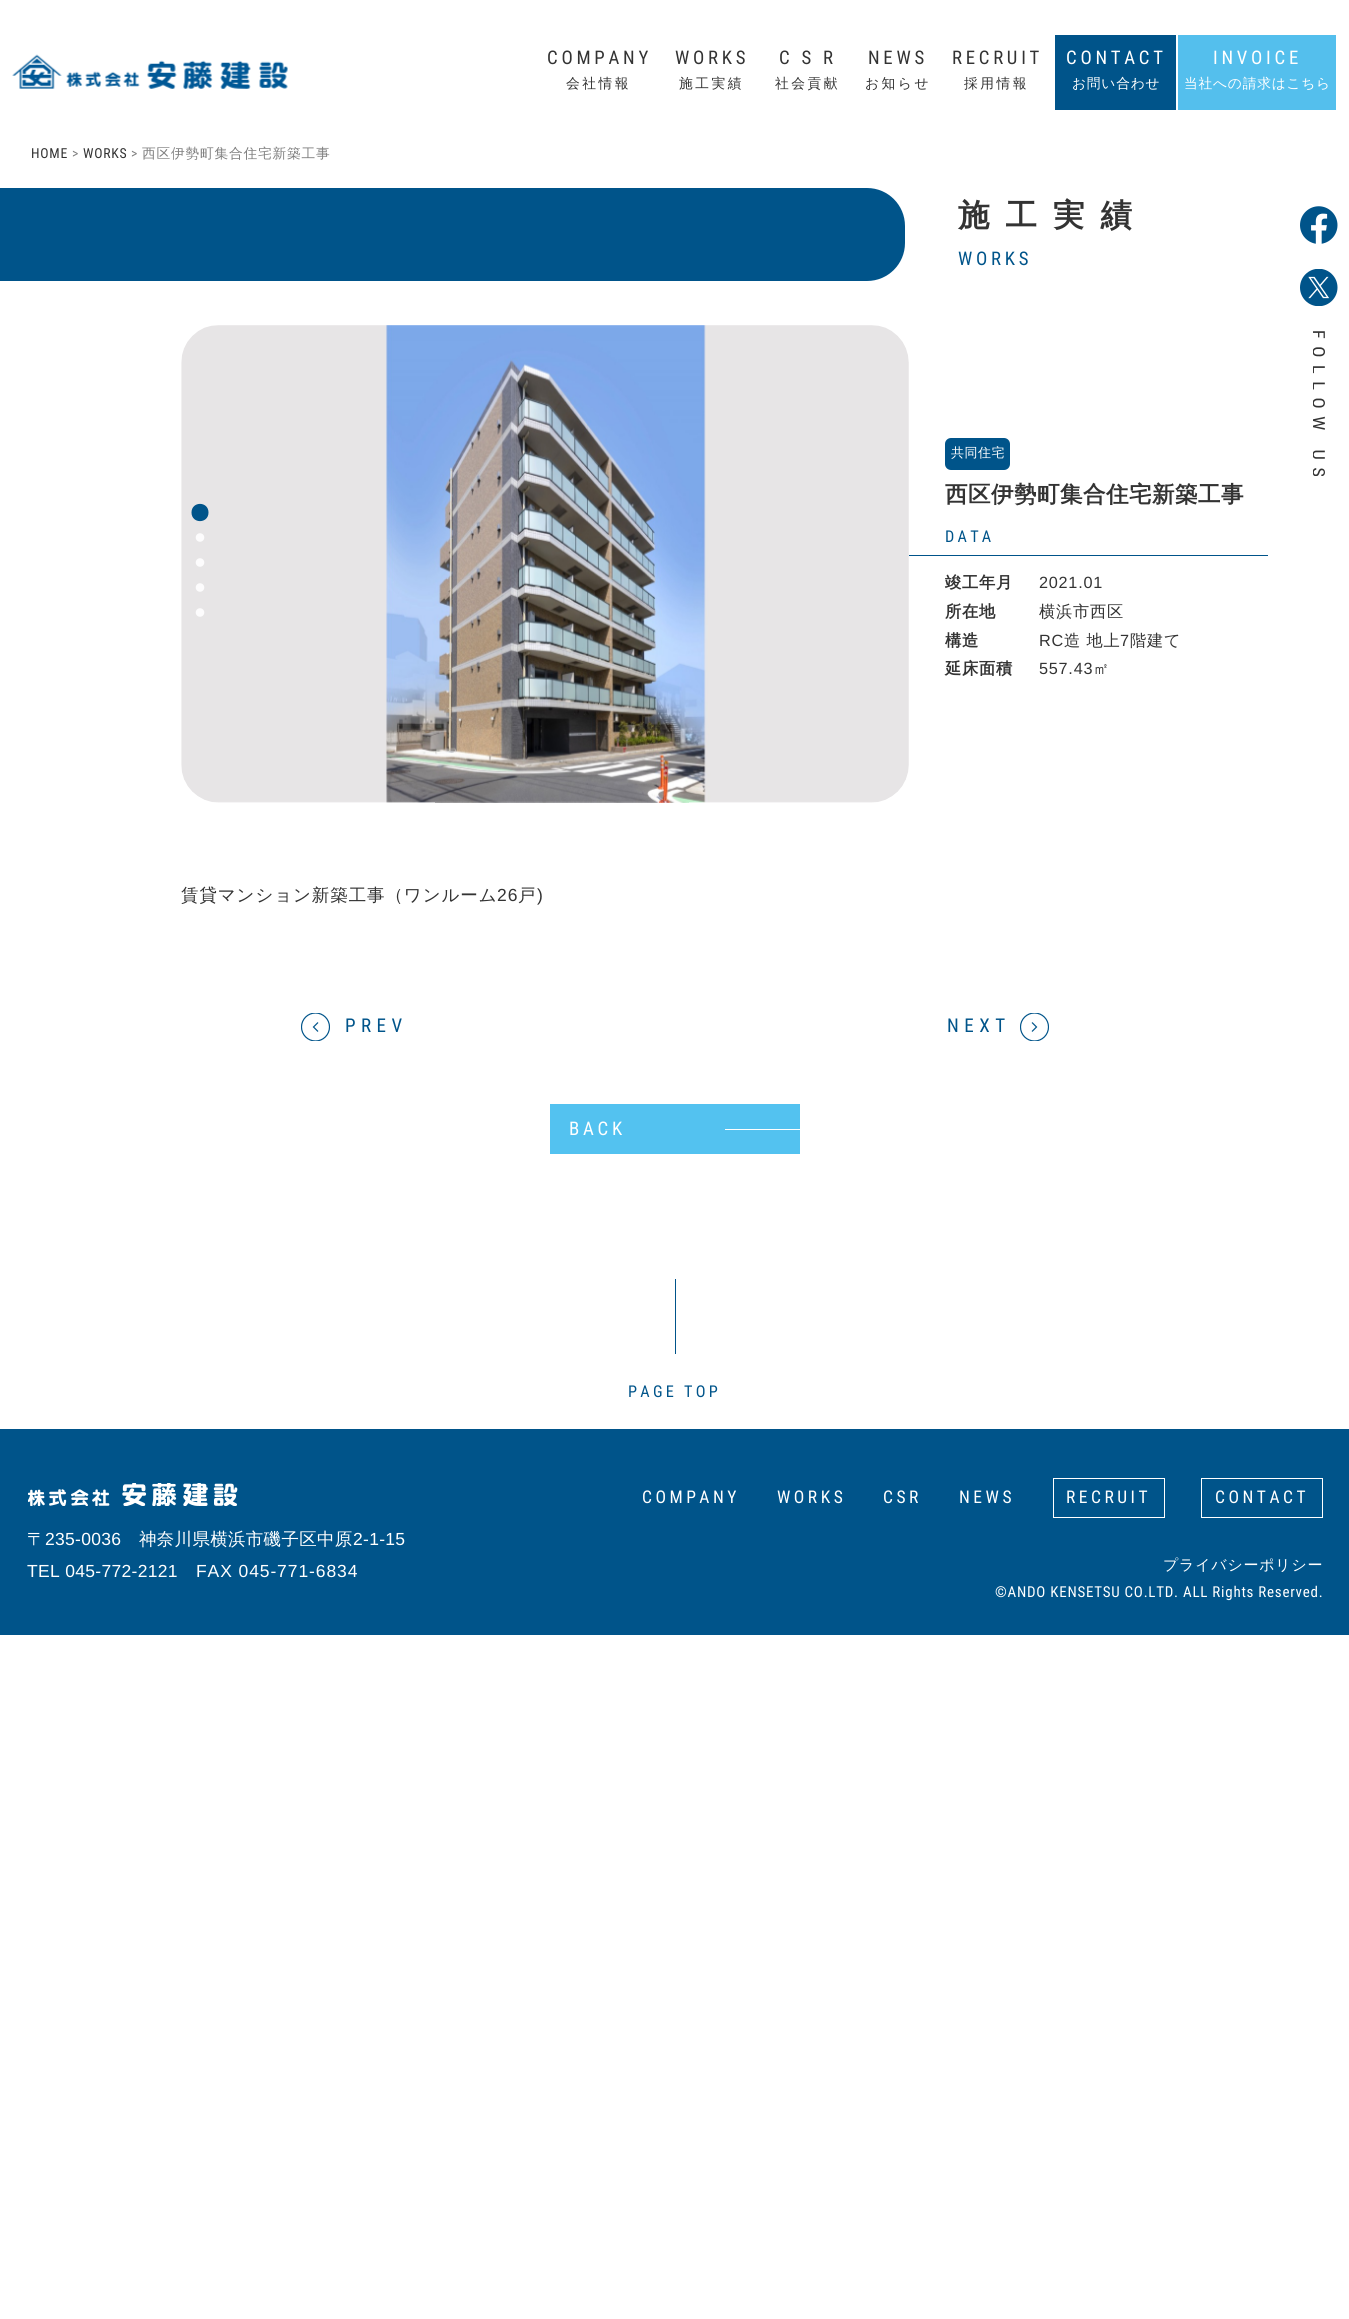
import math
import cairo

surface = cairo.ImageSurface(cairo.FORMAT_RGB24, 1349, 2319)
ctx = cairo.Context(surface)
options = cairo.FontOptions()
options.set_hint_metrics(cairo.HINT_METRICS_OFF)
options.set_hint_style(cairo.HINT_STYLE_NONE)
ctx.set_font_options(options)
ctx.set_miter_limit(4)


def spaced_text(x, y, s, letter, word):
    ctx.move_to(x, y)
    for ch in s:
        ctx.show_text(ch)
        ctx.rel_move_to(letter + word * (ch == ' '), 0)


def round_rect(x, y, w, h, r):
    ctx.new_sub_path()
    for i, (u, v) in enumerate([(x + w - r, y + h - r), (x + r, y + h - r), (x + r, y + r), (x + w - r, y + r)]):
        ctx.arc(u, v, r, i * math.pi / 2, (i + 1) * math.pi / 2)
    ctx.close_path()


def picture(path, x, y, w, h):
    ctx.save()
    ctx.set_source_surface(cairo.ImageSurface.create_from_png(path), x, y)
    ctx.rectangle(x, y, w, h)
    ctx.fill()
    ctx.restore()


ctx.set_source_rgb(1, 1, 1)
ctx.paint()
picture("img1.png", 12, 54, 276, 35)
ctx.select_font_face("Roboto Condensed")
ctx.set_font_size(18.75)
ctx.set_source_rgb(0.2, 0.2, 0.2)
spaced_text(547, 64, "COMPANY", 3.75, 0)
ctx.select_font_face("WenQuanYi Zen Hei Medium")
ctx.set_font_size(13.75)
spaced_text(566, 88, "会社情報", 2.5, 0)
ctx.select_font_face("Roboto Condensed")
ctx.set_font_size(18.75)
spaced_text(675, 64, "WORKS", 3.75, 0)
ctx.select_font_face("WenQuanYi Zen Hei Medium")
ctx.set_font_size(13.75)
spaced_text(679, 88, "施工実績", 2.5, 0)
ctx.select_font_face("Roboto Condensed")
ctx.set_font_size(18.75)
spaced_text(779, 64, "C S R", 3.75, 0)
ctx.select_font_face("WenQuanYi Zen Hei Medium")
ctx.set_font_size(13.75)
spaced_text(775, 88, "社会貢献", 2.5, 0)
ctx.select_font_face("Roboto Condensed")
ctx.set_font_size(18.75)
spaced_text(868, 64, "NEWS", 3.75, 0)
ctx.select_font_face("WenQuanYi Zen Hei Medium")
ctx.set_font_size(13.75)
spaced_text(865, 88, "お知らせ", 2.5, 0)
ctx.select_font_face("Roboto Condensed")
ctx.set_font_size(18.75)
spaced_text(952, 64, "RECRUIT", 3.75, 0)
ctx.select_font_face("WenQuanYi Zen Hei Medium")
ctx.set_font_size(13.75)
spaced_text(964, 88, "採用情報", 2.5, 0)
ctx.set_source_rgb(0, 0.329, 0.541)
ctx.rectangle(1055, 35, 121, 75)
ctx.fill()
ctx.select_font_face("Roboto Condensed")
ctx.set_font_size(18.75)
ctx.set_source_rgb(1, 1, 1)
spaced_text(1066, 64, "CONTACT", 3.75, 0)
ctx.select_font_face("WenQuanYi Zen Hei Medium")
ctx.set_font_size(13.75)
spaced_text(1072, 88, "お問い合わせ", 0.75, 0)
ctx.set_source_rgb(0.329, 0.749, 0.929)
ctx.rectangle(1178, 35, 158, 75)
ctx.fill()
ctx.select_font_face("Roboto Condensed")
ctx.set_font_size(18.75)
ctx.set_source_rgb(1, 1, 1)
spaced_text(1213, 64, "INVOICE", 3.75, 0)
ctx.select_font_face("WenQuanYi Zen Hei Medium")
ctx.set_font_size(13.75)
spaced_text(1184, 88, "当社への請求はこちら", 0.75, 0)
ctx.select_font_face("Roboto Condensed")
ctx.set_source_rgb(0.2, 0.2, 0.2)
spaced_text(31, 158, "HOME", 0.75, 0)
ctx.set_source_rgb(0.502, 0.502, 0.502)
spaced_text(72, 158, ">", 0.75, 0)
ctx.set_source_rgb(0.2, 0.2, 0.2)
spaced_text(83, 158, "WORKS", 0.75, 0)
ctx.set_source_rgb(0.502, 0.502, 0.502)
spaced_text(131, 158, ">", 0.75, 0)
ctx.select_font_face("WenQuanYi Zen Hei Medium")
spaced_text(142, 158, "西区伊勢町集合住宅新築工事", 0.75, 0)
ctx.set_source_rgb(0, 0.329, 0.541)
ctx.new_path()
ctx.move_to(0, 188)
ctx.line_to(867, 188)
ctx.curve_to(888, 188, 905, 205, 905, 226)
ctx.line_to(905, 243)
ctx.curve_to(905, 264, 888, 281, 867, 281)
ctx.line_to(0, 281)
ctx.close_path()
ctx.fill()
ctx.select_font_face("WenQuanYi Zen Hei", cairo.FONT_SLANT_NORMAL, cairo.FONT_WEIGHT_BOLD)
ctx.set_font_size(31.5)
ctx.set_source_rgb(0.2, 0.2, 0.2)
spaced_text(958, 226, "施工実績", 16, 0)
ctx.select_font_face("Roboto Condensed")
ctx.set_font_size(18.75)
ctx.set_source_rgb(0, 0.329, 0.541)
spaced_text(958, 265, "WORKS", 3.75, 0)
picture("img2.png", 1300, 206, 38, 38)
picture("img3.png", 1300, 269, 38, 37)
picture("img4.png", 1313, 331, 12, 145)
picture("img5.png", 181, 325, 728, 478)
ctx.new_path()
ctx.move_to(208.5, 512.5)
ctx.curve_to(208.5, 501, 191.5, 501, 191.5, 512.5)
ctx.curve_to(191.5, 524, 208.5, 524, 208.5, 512.5)
ctx.close_path()
ctx.fill()
picture("img6.png", 195, 533, 10, 9)
picture("img6.png", 195, 558, 10, 9)
picture("img6.png", 195, 583, 10, 9)
picture("img6.png", 195, 608, 10, 9)
round_rect(945, 438, 65, 32, 6)
ctx.fill()
ctx.select_font_face("WenQuanYi Zen Hei Medium")
ctx.set_font_size(13)
ctx.set_source_rgb(1, 1, 1)
spaced_text(951, 457, "共同住宅", 0.5, 0)
ctx.select_font_face("WenQuanYi Zen Hei", cairo.FONT_SLANT_NORMAL, cairo.FONT_WEIGHT_BOLD)
ctx.set_font_size(22.5)
ctx.set_source_rgb(0.2, 0.2, 0.2)
spaced_text(945, 502, "西区伊勢町集合住宅新築工事", 0.5, 0)
ctx.set_source_rgb(0, 0.329, 0.541)
ctx.rectangle(909, 555, 359, 1)
ctx.fill()
ctx.select_font_face("Roboto Condensed")
ctx.set_font_size(16.25)
spaced_text(945, 542, "DATA", 3.25, 0)
ctx.select_font_face("WenQuanYi Zen Hei", cairo.FONT_SLANT_NORMAL, cairo.FONT_WEIGHT_BOLD)
ctx.set_source_rgb(0.2, 0.2, 0.2)
spaced_text(945, 588, "竣工年月", 0.75, 0)
ctx.select_font_face("Liberation Sans")
spaced_text(1039, 588, "2021.01", 0.75, 0)
ctx.select_font_face("WenQuanYi Zen Hei", cairo.FONT_SLANT_NORMAL, cairo.FONT_WEIGHT_BOLD)
spaced_text(945, 617, "所在地", 0.75, 0)
ctx.select_font_face("WenQuanYi Zen Hei Medium")
spaced_text(1039, 617, "横浜市西区", 0.75, 0)
ctx.select_font_face("WenQuanYi Zen Hei", cairo.FONT_SLANT_NORMAL, cairo.FONT_WEIGHT_BOLD)
spaced_text(945, 646, "構造", 0.75, 0)
ctx.select_font_face("Liberation Sans")
spaced_text(1039, 646, "RC", 0.75, 0)
ctx.select_font_face("WenQuanYi Zen Hei Medium")
spaced_text(1064, 646, "造 地上", 0.75, 0)
ctx.select_font_face("Liberation Sans")
spaced_text(1120, 646, "7", 0.75, 0)
ctx.select_font_face("WenQuanYi Zen Hei Medium")
spaced_text(1130, 646, "階建て", 0.75, 0)
ctx.select_font_face("WenQuanYi Zen Hei", cairo.FONT_SLANT_NORMAL, cairo.FONT_WEIGHT_BOLD)
spaced_text(945, 674, "延床面積", 0.75, 0)
ctx.select_font_face("Liberation Sans")
spaced_text(1039, 674, "557.43", 0.75, 0)
ctx.select_font_face("WenQuanYi Zen Hei Medium")
spaced_text(1093, 674, "㎡", 0.75, 0)
ctx.set_font_size(17.5)
spaced_text(181, 901, "賃貸マンション新築工事（ワンルーム", 0.9, 0)
ctx.select_font_face("Liberation Sans")
spaced_text(497, 901, "26", 0.9, 0)
ctx.select_font_face("WenQuanYi Zen Hei Medium")
spaced_text(518, 901, "戸", 0.9, 0)
ctx.select_font_face("Liberation Sans")
spaced_text(537, 901, ")", 0.9, 0)
ctx.save()
ctx.rectangle(301, 1013, 29, 28)
ctx.clip()
ctx.arc(315.5, 1027, 14, 0, 2 * math.pi)
ctx.set_source_rgb(0, 0.329, 0.541)
ctx.set_line_width(1.2)
ctx.stroke()
ctx.restore()
ctx.new_path()
ctx.move_to(318, 1022.5)
ctx.line_to(313.5, 1027)
ctx.line_to(318, 1031.5)
ctx.set_source_rgb(0, 0.329, 0.541)
ctx.set_line_width(1.2)
ctx.stroke()
ctx.select_font_face("Roboto Condensed")
ctx.set_font_size(19)
spaced_text(345, 1032, "PREV", 5.5, 0)
spaced_text(947, 1032, "NEXT", 5.5, 0)
ctx.save()
ctx.rectangle(1020, 1013, 29, 28)
ctx.clip()
ctx.arc(1034.5, 1027, 14, 0, 2 * math.pi)
ctx.stroke()
ctx.restore()
ctx.new_path()
ctx.move_to(1032, 1022.5)
ctx.line_to(1036.5, 1027)
ctx.line_to(1032, 1031.5)
ctx.stroke()
ctx.set_source_rgb(0.325, 0.761, 0.941)
ctx.rectangle(550, 1104, 250, 50)
ctx.fill()
ctx.set_font_size(18.75)
ctx.set_source_rgb(1, 1, 1)
spaced_text(569, 1135, "BACK", 3.75, 0)
ctx.rectangle(725, 1129, 75, 1)
ctx.fill()
ctx.set_source_rgb(0, 0.329, 0.541)
ctx.rectangle(675, 1279, 1, 75)
ctx.fill()
ctx.set_font_size(16.25)
spaced_text(628, 1397, "PAGE TOP", 3.25, 0)
ctx.rectangle(0, 1429, 1349, 206)
ctx.fill()
picture("img7.png", 28, 1483, 210, 23)
ctx.select_font_face("WenQuanYi Zen Hei Medium")
ctx.set_font_size(17.5)
ctx.set_source_rgb(1, 1, 1)
spaced_text(27, 1545, "〒", 0.3, 0)
ctx.select_font_face("Liberation Sans")
spaced_text(45, 1545, "235-0036", 0.3, 0)
ctx.select_font_face("WenQuanYi Zen Hei Medium")
spaced_text(139, 1545, "神奈川県横浜市磯子区中原", 0.3, 0)
ctx.select_font_face("Liberation Sans")
spaced_text(353, 1545, "2-1-15", 0.3, 0)
spaced_text(27, 1577, "TEL 045-772-2121", 0.3, 0)
spaced_text(196, 1577, "FAX 045-771-6834", 0.9, 0)
ctx.select_font_face("Roboto Condensed")
spaced_text(642, 1503, "COMPANY", 3.5, 0)
spaced_text(777, 1503, "WORKS", 3.5, 0)
spaced_text(883, 1503, "CSR", 3.5, 0)
spaced_text(959, 1503, "NEWS", 3.5, 0)
ctx.rectangle(1053.5, 1478.5, 111, 39)
ctx.set_line_width(1)
ctx.stroke()
spaced_text(1066, 1503, "RECRUIT", 3.5, 0)
ctx.rectangle(1201.5, 1478.5, 121, 39)
ctx.stroke()
spaced_text(1215, 1503, "CONTACT", 3.5, 0)
ctx.select_font_face("WenQuanYi Zen Hei Medium")
ctx.set_font_size(15)
spaced_text(1163, 1570, "プライバシーポリシー", 0.75, 0)
ctx.select_font_face("Roboto Condensed")
spaced_text(995, 1597, "©ANDO KENSETSU CO.LTD. ALL Rights Reserved.", 0.75, 0)
surface.write_to_png("page.png")
